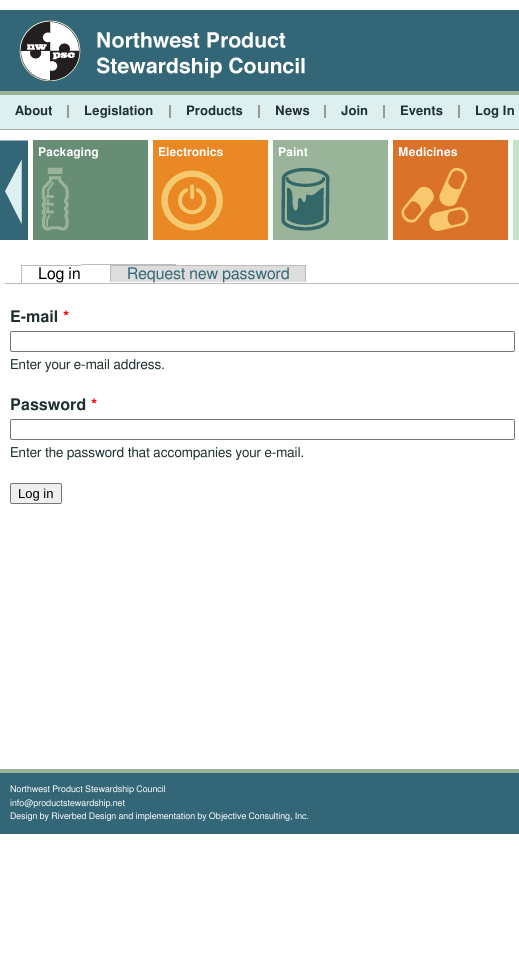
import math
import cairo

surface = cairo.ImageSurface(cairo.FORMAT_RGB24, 519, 954)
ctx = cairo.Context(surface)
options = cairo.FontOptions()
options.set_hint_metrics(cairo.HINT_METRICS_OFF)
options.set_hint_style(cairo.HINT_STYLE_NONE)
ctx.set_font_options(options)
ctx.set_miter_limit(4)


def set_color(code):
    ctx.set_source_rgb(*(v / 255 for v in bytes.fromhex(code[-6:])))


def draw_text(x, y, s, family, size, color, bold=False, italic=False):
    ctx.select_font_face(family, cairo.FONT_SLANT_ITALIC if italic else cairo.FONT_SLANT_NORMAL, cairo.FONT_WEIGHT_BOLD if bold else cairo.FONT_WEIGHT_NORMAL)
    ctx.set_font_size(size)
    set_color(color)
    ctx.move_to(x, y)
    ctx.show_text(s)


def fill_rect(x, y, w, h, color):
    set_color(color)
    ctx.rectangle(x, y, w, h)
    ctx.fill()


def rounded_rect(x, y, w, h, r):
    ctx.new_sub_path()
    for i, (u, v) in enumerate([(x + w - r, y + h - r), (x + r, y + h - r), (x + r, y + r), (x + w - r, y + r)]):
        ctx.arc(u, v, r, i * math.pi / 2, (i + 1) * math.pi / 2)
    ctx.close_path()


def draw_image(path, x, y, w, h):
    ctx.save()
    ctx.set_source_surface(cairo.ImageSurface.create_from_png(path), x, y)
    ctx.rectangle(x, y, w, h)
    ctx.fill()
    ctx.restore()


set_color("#ffffff")
ctx.paint()
fill_rect(0, 10, 519, 81, "#336677")
fill_rect(0, 91, 519, 4, "#99b399")
draw_image("assets/img1.png", 19, 20, 286, 61)
fill_rect(0, 95, 519, 34, "#deefef")
fill_rect(0, 129, 519, 1, "#99b399")
fill_rect(67, 105, 2, 13, "#999999")
draw_text(15, 115, "About", "FreeSans SemiBold", 13, "#1e3030")
fill_rect(169, 105, 2, 13, "#999999")
draw_text(84, 115, "Legislation", "FreeSans SemiBold", 13, "#1e3030")
fill_rect(258, 105, 2, 13, "#999999")
draw_text(186, 115, "Products", "FreeSans SemiBold", 13, "#1e3030")
fill_rect(324, 105, 2, 13, "#999999")
draw_text(275, 115, "News", "FreeSans SemiBold", 13, "#1e3030")
fill_rect(383, 105, 2, 13, "#999999")
draw_text(341, 115, "Join", "FreeSans SemiBold", 13, "#1e3030")
fill_rect(458, 105, 2, 13, "#999999")
draw_text(400, 115, "Events", "FreeSans SemiBold", 13, "#1e3030")
draw_text(475, 115, "Log In", "FreeSans SemiBold", 13, "#1e3030")
draw_image("assets/img2.png", 0, 140, 28, 100)
draw_image("assets/img3.png", 33, 140, 115, 100)
draw_text(38, 156, "Packaging", "FreeSans SemiBold", 12, "#ffffff")
draw_image("assets/img4.png", 153, 140, 115, 100)
draw_text(158, 156, "Electronics", "FreeSans SemiBold", 12, "#ffffff")
draw_image("assets/img5.png", 273, 140, 115, 100)
draw_text(278, 156, "Paint", "FreeSans SemiBold", 12, "#ffffff")
draw_image("assets/img6.png", 393, 140, 115, 100)
draw_text(398, 156, "Medicines", "FreeSans SemiBold", 12, "#ffffff")
fill_rect(513, 140, 6, 100, "#c5e3c7")
fill_rect(5, 283, 514, 1, "#bbbbbb")
draw_text(38, 279, "Log in", "FreeSans", 16, "#000000")
fill_rect(21, 265, 60, 1, "#bbbbbb")
fill_rect(21, 265, 1, 18, "#bbbbbb")
fill_rect(81, 264, 95, 1, "#bbbbbb")
fill_rect(175, 264, 1, 3, "#bbbbbb")
fill_rect(111, 266, 194, 16, "#dddddd")
draw_text(127, 279, "Request new password", "FreeSans", 16, "#346677")
fill_rect(110, 265, 196, 1, "#bbbbbb")
fill_rect(305, 265, 1, 17, "#bbbbbb")
fill_rect(110, 265, 1, 17, "#bbbbbb")
draw_text(10, 322, "E-mail", "FreeSans SemiBold", 16, "#1e3030")
draw_text(63, 322, "*", "FreeSans SemiBold", 16, "#ff0000")
rounded_rect(10.5, 331.5, 504, 20, 1.5)
set_color("#767676")
ctx.set_line_width(1)
ctx.stroke()
draw_text(10, 369, "Enter your e-mail address.", "FreeSans", 13.6, "#1e3030")
draw_text(10, 410, "Password", "FreeSans SemiBold", 16, "#1e3030")
draw_text(91, 410, "*", "FreeSans SemiBold", 16, "#ff0000")
rounded_rect(10.5, 419.5, 504, 20, 1.5)
set_color("#767676")
ctx.stroke()
draw_text(10, 457, "Enter the password that accompanies your e-mail.", "FreeSans", 13.6, "#1e3030")
set_color("#efefef")
rounded_rect(10.5, 483.5, 51, 20, 1.5)
ctx.fill_preserve()
set_color("#767676")
ctx.stroke()
draw_text(18, 498, "Log in", "Liberation Sans", 13, "#000000")
fill_rect(0, 773, 519, 61, "#336677")
fill_rect(0, 769, 519, 4, "#99b399")
draw_text(10, 792, "Northwest Product Stewardship Council", "FreeSans", 9, "#ffffff")
draw_text(10, 806, "info@productstewardship.net", "FreeSans", 9, "#ffffff")
draw_text(10, 819, "Design by Riverbed Design and implementation by Objective Consulting, Inc.", "FreeSans", 9, "#ffffff")
surface.write_to_png("output.png")
